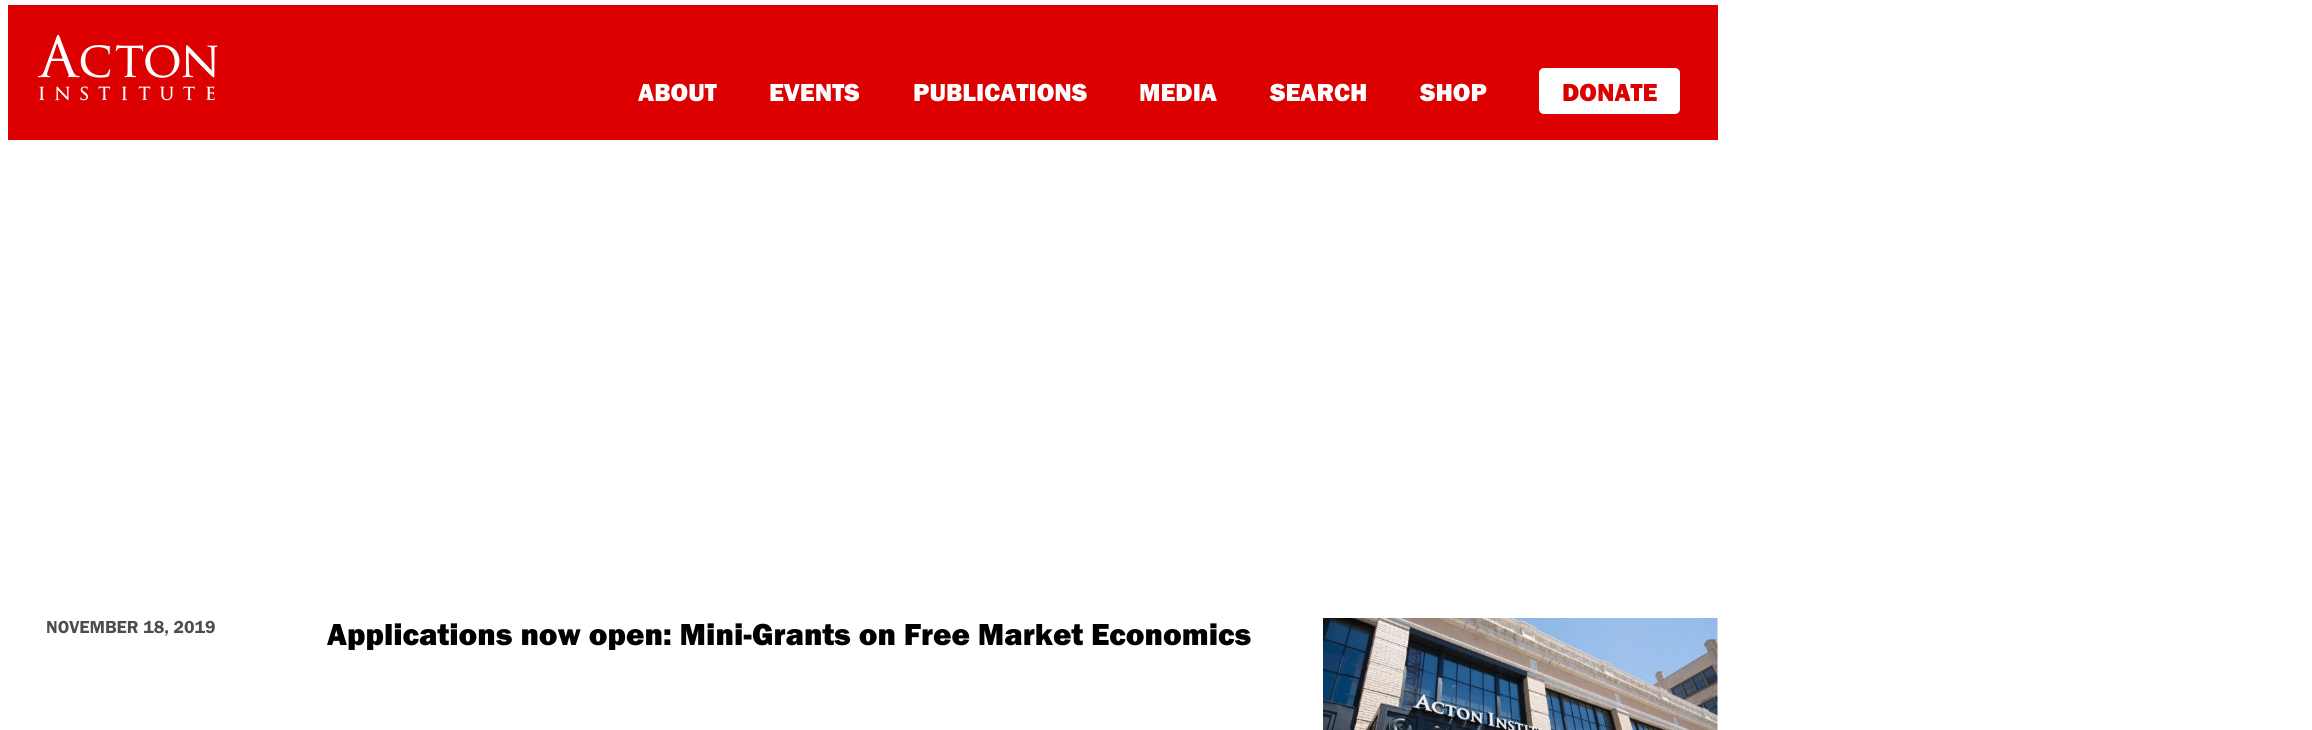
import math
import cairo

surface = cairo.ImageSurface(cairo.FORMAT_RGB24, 2312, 730)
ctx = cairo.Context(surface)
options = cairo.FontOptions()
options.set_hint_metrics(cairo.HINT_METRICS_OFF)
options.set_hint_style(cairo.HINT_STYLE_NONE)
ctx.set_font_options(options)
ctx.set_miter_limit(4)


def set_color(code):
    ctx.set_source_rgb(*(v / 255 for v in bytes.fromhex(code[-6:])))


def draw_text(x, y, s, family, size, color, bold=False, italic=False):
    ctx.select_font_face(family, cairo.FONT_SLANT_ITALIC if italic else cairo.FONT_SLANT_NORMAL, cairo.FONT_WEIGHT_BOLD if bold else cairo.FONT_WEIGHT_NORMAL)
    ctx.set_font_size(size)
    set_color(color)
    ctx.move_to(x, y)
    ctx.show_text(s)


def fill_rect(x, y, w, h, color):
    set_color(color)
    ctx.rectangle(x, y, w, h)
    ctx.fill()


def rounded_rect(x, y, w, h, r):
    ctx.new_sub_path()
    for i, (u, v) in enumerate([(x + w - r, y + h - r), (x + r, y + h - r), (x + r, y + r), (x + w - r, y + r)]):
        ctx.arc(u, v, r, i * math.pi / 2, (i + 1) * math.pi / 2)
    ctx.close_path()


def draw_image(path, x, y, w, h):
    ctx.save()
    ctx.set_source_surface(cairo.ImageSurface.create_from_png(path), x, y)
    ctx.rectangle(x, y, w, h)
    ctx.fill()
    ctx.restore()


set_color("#ffffff")
ctx.paint()
fill_rect(8, 5, 1710, 135, "#dd0000")
draw_image("assets/img1.png", 38, 35, 180, 66)
draw_text(638, 101, "ABOUT", "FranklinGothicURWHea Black", 25.5, "#ffffff")
draw_text(769, 101, "EVENTS", "FranklinGothicURWHea Black", 25.5, "#ffffff")
draw_text(913, 101, "PUBLICATIONS", "FranklinGothicURWHea Black", 25.5, "#ffffff")
draw_text(1139, 101, "MEDIA", "FranklinGothicURWHea Black", 25.5, "#ffffff")
draw_text(1270, 101, "SEARCH", "FranklinGothicURWHea Black", 25.5, "#ffffff")
draw_text(1420, 101, "SHOP", "FranklinGothicURWHea Black", 25.5, "#ffffff")
rounded_rect(1539, 68, 141, 46, 5)
ctx.fill()
draw_text(1562, 101, "DONATE", "FranklinGothicURWHea Black", 25.5, "#dd0000")
draw_text(46, 633, "NOVEMBER 18, 2019", "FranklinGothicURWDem", 18, "#4d4d4d")
draw_text(327, 645, "Applications now open: Mini-Grants on Free Market Economics", "FranklinGothicURWHea Black", 31.5, "#000000")
draw_image("assets/img2.png", 1323, 618, 395, 112)
surface.write_to_png("output.png")
